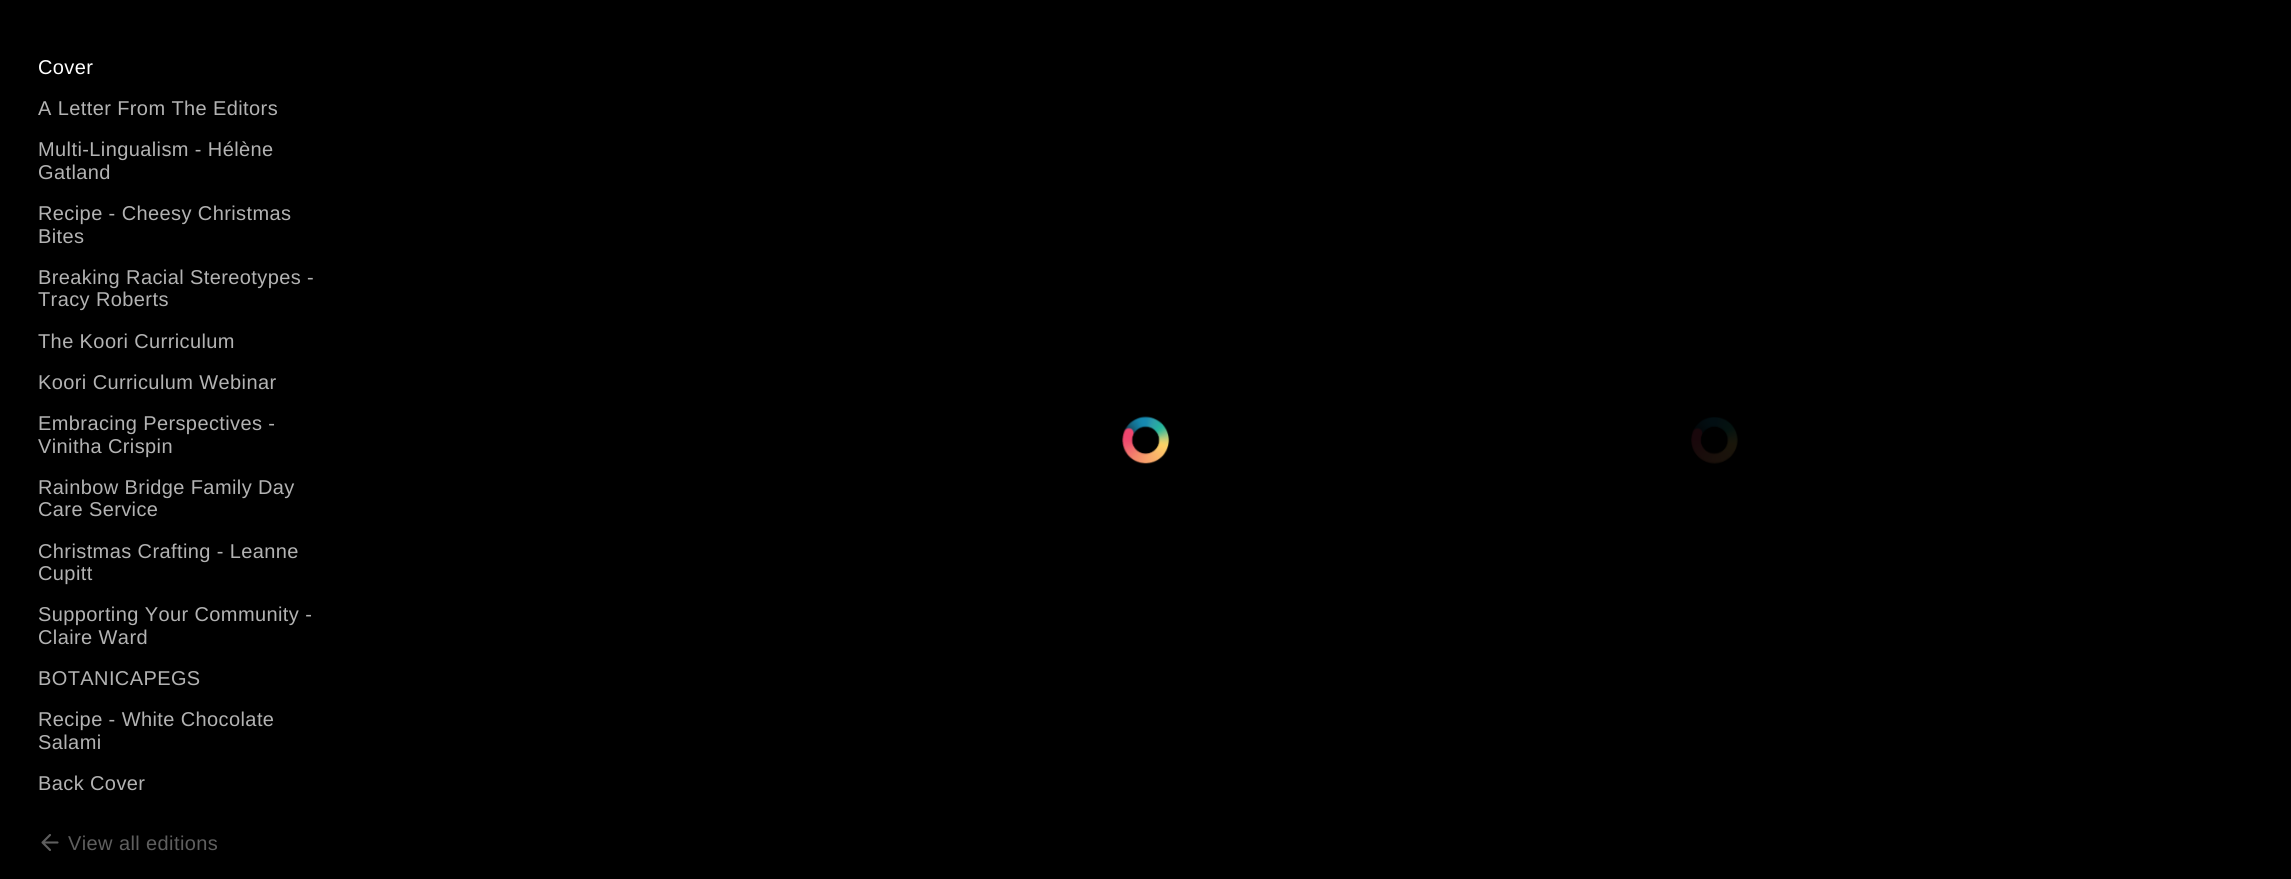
import math
import cairo

surface = cairo.ImageSurface(cairo.FORMAT_RGB24, 2291, 879)
ctx = cairo.Context(surface)
options = cairo.FontOptions()
options.set_hint_metrics(cairo.HINT_METRICS_OFF)
options.set_hint_style(cairo.HINT_STYLE_NONE)
ctx.set_font_options(options)
ctx.set_miter_limit(4)


def set_color(code):
    ctx.set_source_rgb(*(v / 255 for v in bytes.fromhex(code[-6:])))


def draw_spaced(x, y, s, letter, word):
    ctx.move_to(x, y)
    for ch in s:
        ctx.show_text(ch)
        ctx.rel_move_to(letter + word * (ch == ' '), 0)


def draw_image(path, x, y, w, h):
    ctx.save()
    ctx.set_source_surface(cairo.ImageSurface.create_from_png(path), x, y)
    ctx.rectangle(x, y, w, h)
    ctx.fill()
    ctx.restore()


set_color("#000000")
ctx.paint()
ctx.select_font_face("Liberation Sans")
ctx.set_font_size(20)
set_color("#ffffff")
draw_spaced(38, 74, "Cover", 0.4, 0)
set_color("#b3b3b3")
draw_spaced(38, 115, "A Letter From The Editors", 0.4, 0)
draw_spaced(38, 156, "Multi-Lingualism - Hélène", 0.4, 0)
draw_spaced(38, 179, "Gatland", 0.4, 0)
draw_spaced(38, 220, "Recipe - Cheesy Christmas", 0.4, 0)
draw_spaced(38, 243, "Bites", 0.4, 0)
draw_spaced(38, 284, "Breaking Racial Stereotypes -", 0.4, 0)
draw_spaced(38, 306, "Tracy Roberts", 0.4, 0)
draw_spaced(38, 348, "The Koori Curriculum", 0.4, 0)
draw_spaced(38, 389, "Koori Curriculum Webinar", 0.4, 0)
draw_spaced(38, 430, "Embracing Perspectives -", 0.4, 0)
draw_spaced(38, 453, "Vinitha Crispin", 0.4, 0)
draw_spaced(38, 494, "Rainbow Bridge Family Day", 0.4, 0)
draw_spaced(38, 516, "Care Service", 0.4, 0)
draw_spaced(38, 558, "Christmas Crafting - Leanne", 0.4, 0)
draw_spaced(38, 580, "Cupitt", 0.4, 0)
draw_spaced(38, 621, "Supporting Your Community -", 0.4, 0)
draw_spaced(38, 644, "Claire Ward", 0.4, 0)
draw_spaced(38, 685, "BOTANICAPEGS", 0.4, 0)
draw_spaced(38, 726, "Recipe - White Chocolate", 0.4, 0)
draw_spaced(38, 749, "Salami", 0.4, 0)
draw_spaced(38, 790, "Back Cover", 0.4, 0)
set_color("#5f5f5f")
draw_spaced(68, 850, "View all editions", 0.4, 0)
ctx.new_path()
ctx.move_to(57.5, 842.5)
ctx.line_to(42.5, 842.5)
ctx.move_to(50, 850)
ctx.line_to(42.5, 842.5)
ctx.line_to(50, 835)
ctx.set_line_width(2.1)
ctx.set_line_cap(cairo.LINE_CAP_ROUND)
ctx.set_line_join(cairo.LINE_JOIN_ROUND)
ctx.stroke()
draw_image("assets/img1.png", 1122, 416, 48, 48)
draw_image("assets/img2.png", 1691, 417, 47, 47)
surface.write_to_png("output.png")
